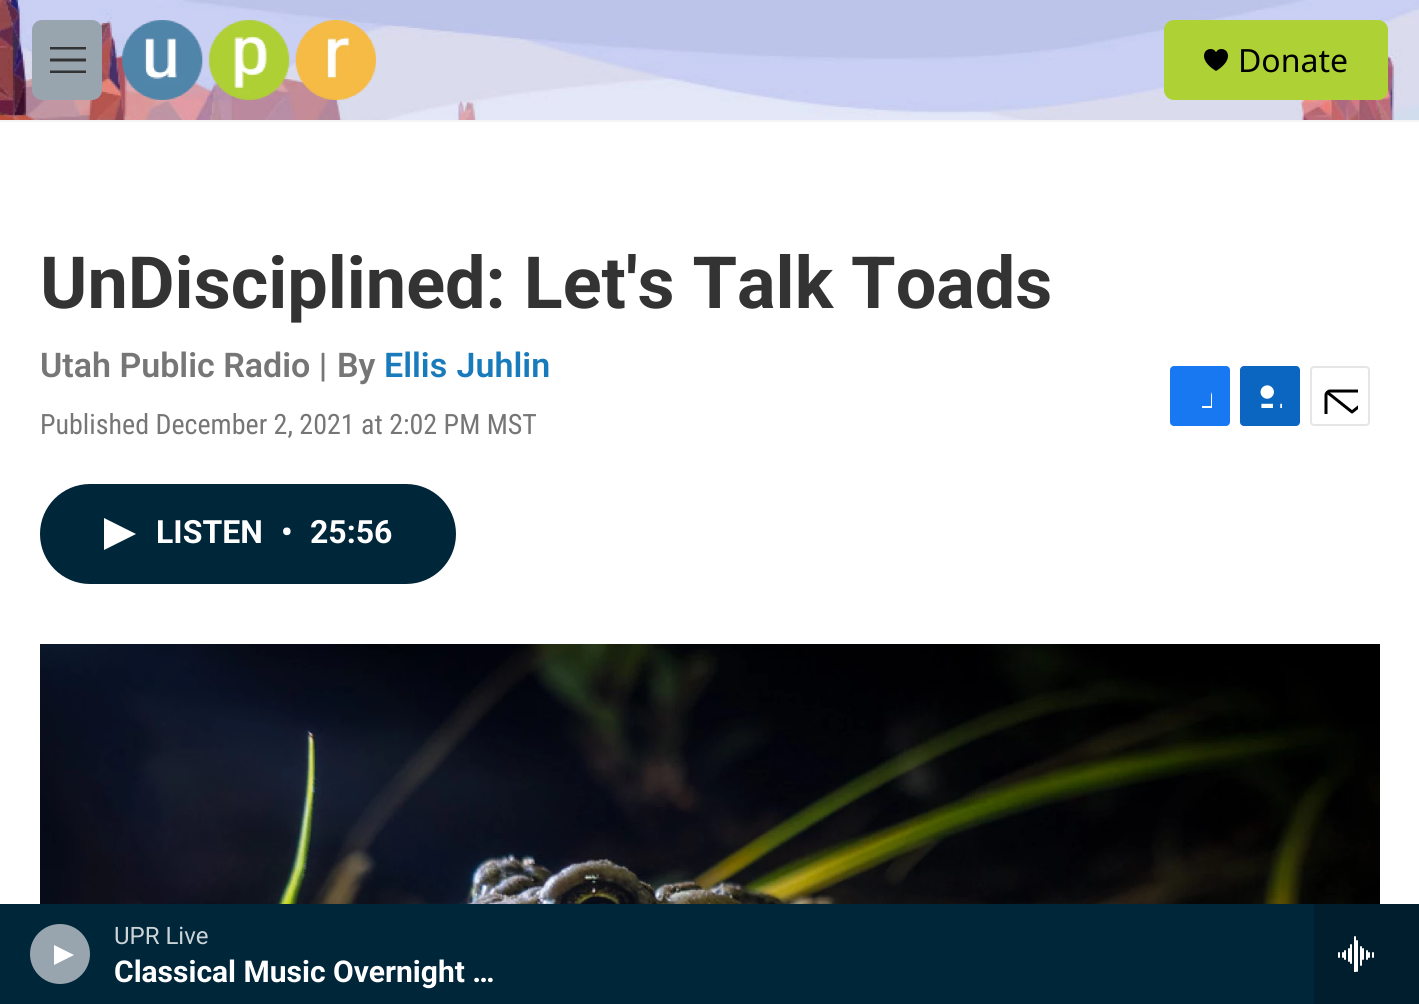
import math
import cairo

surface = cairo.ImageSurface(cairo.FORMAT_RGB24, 1419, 1004)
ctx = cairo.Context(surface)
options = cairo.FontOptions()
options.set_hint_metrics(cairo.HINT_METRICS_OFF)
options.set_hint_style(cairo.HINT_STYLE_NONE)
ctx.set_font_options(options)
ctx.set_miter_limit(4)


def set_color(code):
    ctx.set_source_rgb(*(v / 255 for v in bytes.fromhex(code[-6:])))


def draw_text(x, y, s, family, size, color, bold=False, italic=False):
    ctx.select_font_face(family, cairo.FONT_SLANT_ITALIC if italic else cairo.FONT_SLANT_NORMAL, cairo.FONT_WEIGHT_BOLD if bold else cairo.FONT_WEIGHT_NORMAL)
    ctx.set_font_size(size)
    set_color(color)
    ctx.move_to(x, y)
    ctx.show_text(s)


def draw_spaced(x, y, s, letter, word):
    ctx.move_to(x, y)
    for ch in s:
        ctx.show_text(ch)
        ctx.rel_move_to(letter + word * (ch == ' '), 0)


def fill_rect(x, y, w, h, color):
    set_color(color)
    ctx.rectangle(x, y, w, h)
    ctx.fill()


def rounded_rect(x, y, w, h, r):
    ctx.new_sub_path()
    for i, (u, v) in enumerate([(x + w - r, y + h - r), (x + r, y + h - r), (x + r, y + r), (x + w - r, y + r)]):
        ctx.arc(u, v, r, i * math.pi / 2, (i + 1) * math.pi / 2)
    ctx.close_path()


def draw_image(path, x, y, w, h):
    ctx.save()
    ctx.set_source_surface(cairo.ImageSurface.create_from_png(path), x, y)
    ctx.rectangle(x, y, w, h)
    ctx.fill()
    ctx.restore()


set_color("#ffffff")
ctx.paint()
fill_rect(0, 120, 1419, 2, "#f5f5f5")
draw_image("assets/img1.png", 0, 0, 1419, 120)
set_color("#98a4ae")
rounded_rect(32, 20, 70, 80, 10)
ctx.fill()
set_color("#333333")
ctx.set_fill_rule(cairo.FILL_RULE_EVEN_ODD)
ctx.new_path()
ctx.move_to(50, 61.5)
ctx.line_to(50, 58.5)
ctx.line_to(86, 58.5)
ctx.line_to(86, 61.5)
ctx.close_path()
ctx.move_to(50, 49.5)
ctx.line_to(50, 47)
ctx.line_to(86, 47)
ctx.line_to(86, 49.5)
ctx.close_path()
ctx.move_to(50, 73)
ctx.line_to(50, 70.5)
ctx.line_to(86, 70.5)
ctx.line_to(86, 73)
ctx.close_path()
ctx.fill()
draw_image("assets/img2.png", 122, 20, 254, 80)
set_color("#aed136")
rounded_rect(1164, 20, 224, 80, 10)
ctx.fill()
draw_image("assets/img3.png", 1204, 49, 24, 22)
draw_text(1238, 72, "Donate", "Noto Sans", 32, "#000000")
fill_rect(0, 904, 1314, 100, "#00263a")
set_color("#98a4ae")
ctx.new_path()
ctx.arc(60, 954, 30, 0, 2 * math.pi)
ctx.fill()
set_color("#ffffff")
ctx.set_fill_rule(cairo.FILL_RULE_WINDING)
ctx.new_path()
ctx.move_to(54, 945)
ctx.line_to(74, 955)
ctx.line_to(54, 965)
ctx.close_path()
ctx.fill()
draw_text(114, 944, "UPR Live", "Roboto", 24, "#ccd4d8")
draw_text(114, 982, "Classical Music Overnight …", "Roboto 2", 30, "#ffffff", bold=True)
fill_rect(1314, 904, 105, 100, "#001e2e")
draw_image("assets/img4.png", 1338, 936, 36, 36)
draw_text(40, 308, "UnDisciplined: Let's Talk Toads", "Roboto", 72, "#333333", bold=True)
draw_text(40, 377, "Utah Public Radio |", "Roboto SemiBold", 34, "#767676")
draw_text(337, 377, "By", "Roboto SemiBold", 34, "#767676")
set_color("#1a7bbc")
draw_spaced(384, 377, "Ellis Juhlin", 0, 1)
draw_text(40, 434, "Published December 2, 2021 at 2:02 PM MST", "Roboto Condensed", 28, "#767676")
set_color("#1778f2")
rounded_rect(1170, 366, 60, 60, 4)
ctx.fill()
ctx.save()
ctx.rectangle(1188, 384, 24, 24)
ctx.clip()
set_color("#ffffff")
ctx.new_path()
ctx.move_to(1221, 426)
ctx.line_to(1211, 426)
ctx.line_to(1211, 416)
ctx.line_to(1202, 416)
ctx.line_to(1202, 406)
ctx.line_to(1211, 406)
ctx.line_to(1211, 395)
ctx.curve_to(1213, 386, 1222, 384, 1230, 385)
ctx.line_to(1230, 394)
ctx.curve_to(1219, 394, 1221, 397, 1221, 406)
ctx.line_to(1230, 406)
ctx.line_to(1230, 411)
ctx.line_to(1229, 416)
ctx.line_to(1221, 416)
ctx.close_path()
ctx.fill()
ctx.restore()
set_color("#0a66c1")
rounded_rect(1240, 366, 60, 60, 4)
ctx.fill()
draw_image("assets/img5.png", 1260, 385, 22, 23)
rounded_rect(1311, 367, 58, 58, 3)
set_color("#e6e6e6")
ctx.stroke()
ctx.save()
ctx.rectangle(1322, 378, 36, 36)
ctx.clip()
ctx.new_path()
ctx.move_to(1378, 422)
ctx.curve_to(1378, 424, 1376, 425.5, 1374, 425.5)
ctx.line_to(1330, 425.5)
ctx.curve_to(1328, 425.5, 1326, 424, 1326, 422)
ctx.line_to(1326, 395)
ctx.curve_to(1326, 393, 1328, 391, 1330, 391)
ctx.line_to(1374, 391)
ctx.curve_to(1376, 391, 1378, 393, 1378, 395)
ctx.close_path()
ctx.move_to(1376.5, 392.5)
ctx.line_to(1352, 412)
ctx.line_to(1327.5, 392.5)
set_color("#000000")
ctx.set_line_width(3)
ctx.set_line_cap(cairo.LINE_CAP_ROUND)
ctx.set_line_join(cairo.LINE_JOIN_ROUND)
ctx.stroke()
ctx.restore()
set_color("#00263a")
rounded_rect(40, 484, 416, 100, 50)
ctx.fill()
set_color("#ffffff")
ctx.new_path()
ctx.move_to(104, 518)
ctx.line_to(136, 534)
ctx.line_to(104, 550)
ctx.close_path()
ctx.fill()
draw_text(156, 543, "LISTEN", "Roboto 2", 32, "#ffffff", bold=True)
draw_text(281, 543, "•", "Roboto 2", 32, "#ffffff", bold=True)
draw_text(310, 543, "25:56", "Roboto 2", 32, "#ffffff", bold=True)
draw_image("assets/img6.png", 40, 644, 1340, 260)
surface.write_to_png("output.png")
